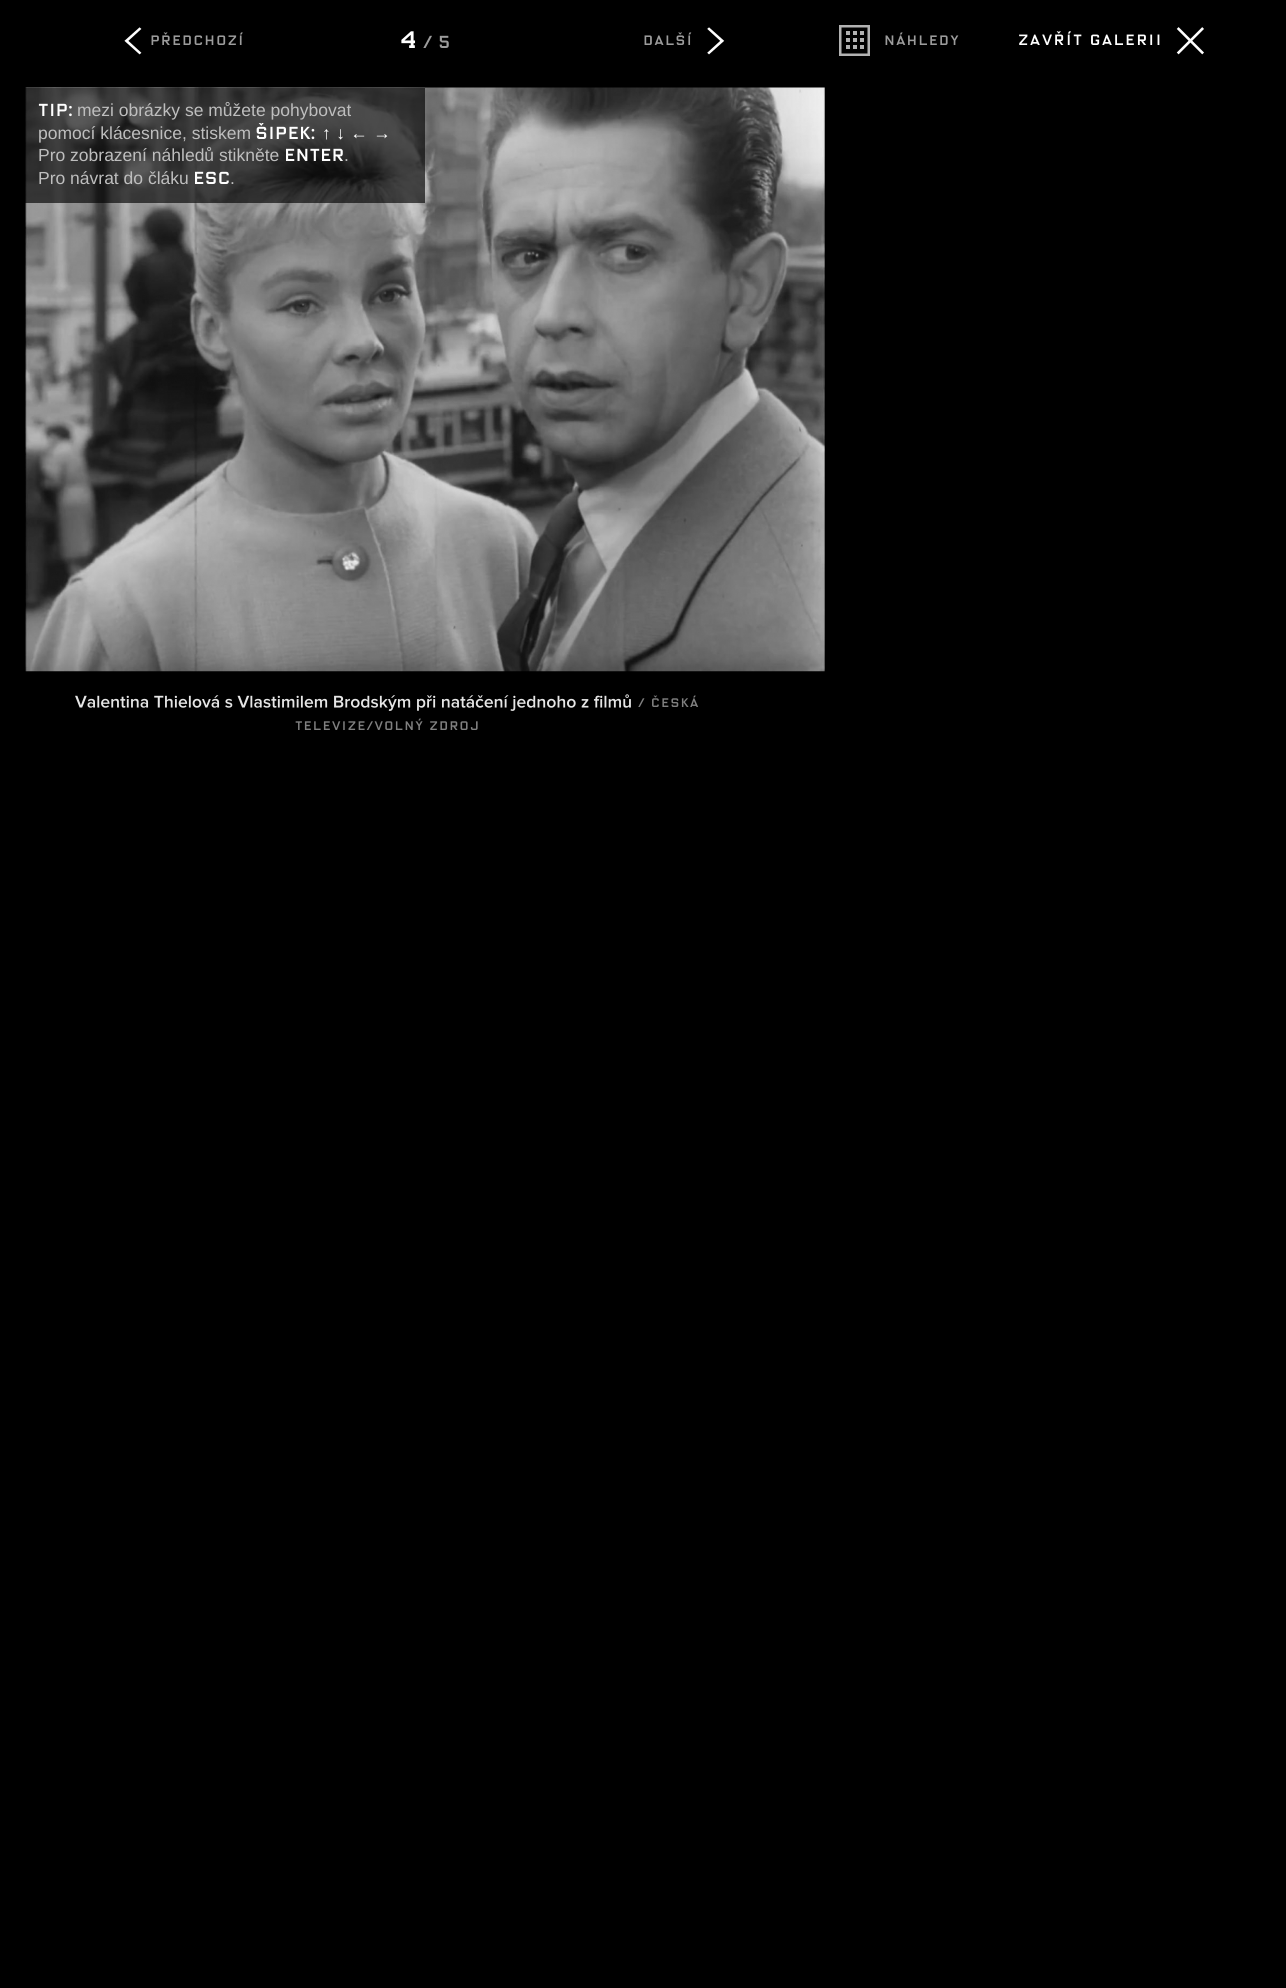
import math
import cairo

surface = cairo.ImageSurface(cairo.FORMAT_RGB24, 1286, 1988)
ctx = cairo.Context(surface)
options = cairo.FontOptions()
options.set_hint_metrics(cairo.HINT_METRICS_OFF)
options.set_hint_style(cairo.HINT_STYLE_NONE)
ctx.set_font_options(options)
ctx.set_miter_limit(4)


def set_color(code):
    ctx.set_source_rgb(*(v / 255 for v in bytes.fromhex(code[-6:])))


def draw_text(x, y, s, family, size, color, bold=False, italic=False):
    ctx.select_font_face(family, cairo.FONT_SLANT_ITALIC if italic else cairo.FONT_SLANT_NORMAL, cairo.FONT_WEIGHT_BOLD if bold else cairo.FONT_WEIGHT_NORMAL)
    ctx.set_font_size(size)
    set_color(color)
    ctx.move_to(x, y)
    ctx.show_text(s)


def draw_spaced(x, y, s, letter, word):
    ctx.move_to(x, y)
    for ch in s:
        ctx.show_text(ch)
        ctx.rel_move_to(letter + word * (ch == ' '), 0)


def draw_image(path, x, y, w, h):
    ctx.save()
    ctx.set_source_surface(cairo.ImageSurface.create_from_png(path), x, y)
    ctx.rectangle(x, y, w, h)
    ctx.fill()
    ctx.restore()


set_color("#000000")
ctx.paint()
draw_image("assets/img1.png", 124, 27, 18, 28)
ctx.select_font_face("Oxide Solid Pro")
ctx.set_font_size(13.75)
set_color("#9c9c9c")
draw_spaced(150, 45, "Předchozí", 1, 0)
draw_text(400, 48, "4", "Oxide Solid Pro", 24, "#ffffff")
draw_text(423, 48, "/ 5", "Oxide Solid Pro", 17.5, "#9c9c9c")
ctx.set_font_size(13.75)
draw_spaced(643, 45, "Další", 1, 0)
draw_image("assets/img2.png", 707, 27, 18, 28)
draw_image("assets/img3.png", 25, 87, 800, 585)
ctx.set_source_rgba(0, 0, 0, 0.65)
ctx.rectangle(25, 88, 400, 115)
ctx.fill()
draw_text(38, 116, "TIP:", "Oxide Solid Pro", 17.5, "#ffffff")
draw_text(77, 116, "mezi obrázky se můžete pohybovat", "Liberation Sans", 17.5, "#bebebe")
draw_text(38, 139, "pomocí klácesnice, stiskem", "Liberation Sans", 17.5, "#bebebe")
draw_text(255, 139, "šipek:", "Oxide Solid Pro", 17.5, "#ffffff")
ctx.select_font_face("Liberation Serif")
draw_spaced(322, 139, "↑ ↓ ← →", 0, 1)
draw_text(38, 161, "Pro zobrazení náhledů stikněte", "Liberation Sans", 17.5, "#bebebe")
draw_text(284, 161, "Enter", "Oxide Solid Pro", 17.5, "#ffffff")
draw_text(344, 161, ".", "Liberation Sans", 17.5, "#bebebe")
draw_text(38, 184, "Pro návrat do čláku", "Liberation Sans", 17.5, "#bebebe")
draw_text(193, 184, "Esc", "Oxide Solid Pro", 17.5, "#ffffff")
draw_text(230, 184, ".", "Liberation Sans", 17.5, "#bebebe")
draw_image("assets/img4.png", 75, 694, 556, 17)
ctx.select_font_face("Oxide Solid Pro")
ctx.set_font_size(12.5)
set_color("#808080")
draw_spaced(638, 707, "/ Česká", 1, 0)
draw_spaced(295, 730, "televize/volný zdroj", 1, 0)
draw_image("assets/img5.png", 839, 25, 31, 31)
ctx.set_font_size(13.75)
set_color("#9c9c9c")
draw_spaced(884, 45, "Náhledy", 1, 0)
ctx.set_font_size(15)
set_color("#ffffff")
draw_spaced(1018, 45, "Zavřít galerii", 1.25, 0)
draw_image("assets/img6.png", 1176, 27, 28, 28)
surface.write_to_png("output.png")
